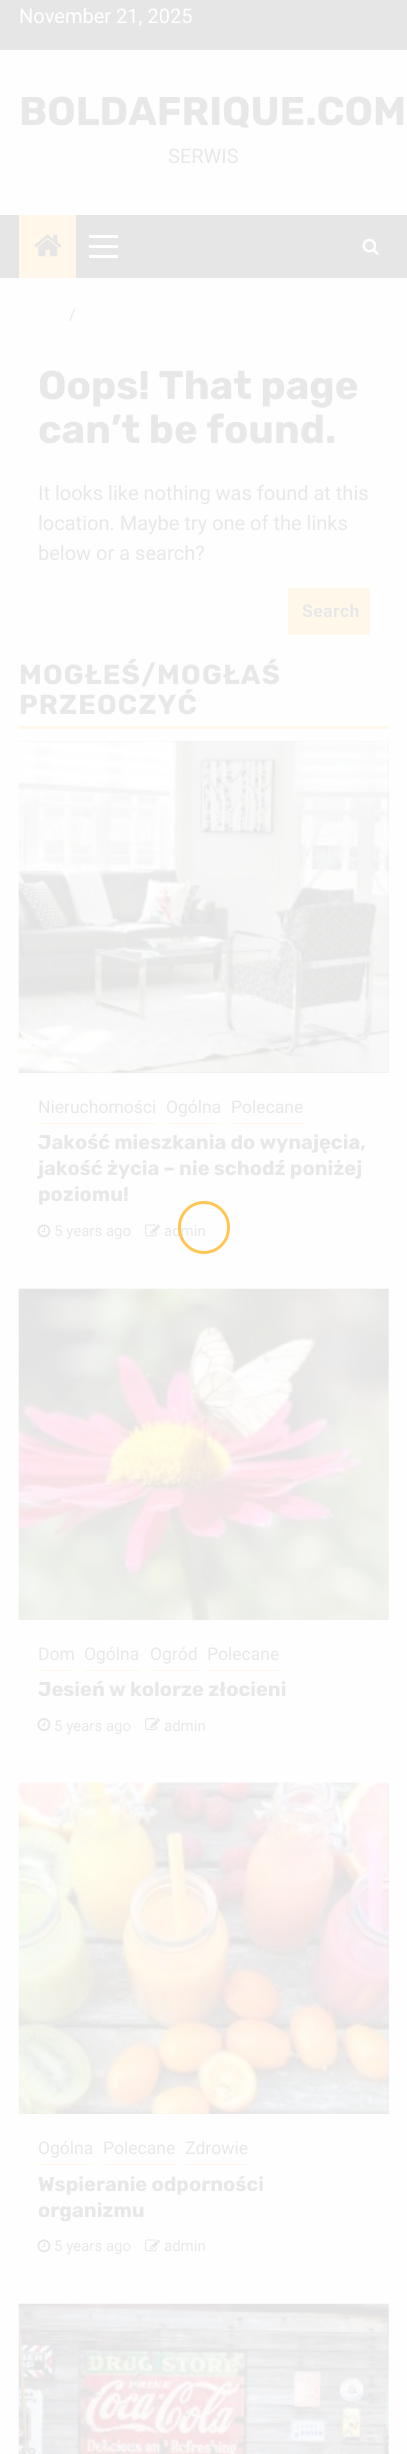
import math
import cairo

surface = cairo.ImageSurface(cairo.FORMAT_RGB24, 407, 2454)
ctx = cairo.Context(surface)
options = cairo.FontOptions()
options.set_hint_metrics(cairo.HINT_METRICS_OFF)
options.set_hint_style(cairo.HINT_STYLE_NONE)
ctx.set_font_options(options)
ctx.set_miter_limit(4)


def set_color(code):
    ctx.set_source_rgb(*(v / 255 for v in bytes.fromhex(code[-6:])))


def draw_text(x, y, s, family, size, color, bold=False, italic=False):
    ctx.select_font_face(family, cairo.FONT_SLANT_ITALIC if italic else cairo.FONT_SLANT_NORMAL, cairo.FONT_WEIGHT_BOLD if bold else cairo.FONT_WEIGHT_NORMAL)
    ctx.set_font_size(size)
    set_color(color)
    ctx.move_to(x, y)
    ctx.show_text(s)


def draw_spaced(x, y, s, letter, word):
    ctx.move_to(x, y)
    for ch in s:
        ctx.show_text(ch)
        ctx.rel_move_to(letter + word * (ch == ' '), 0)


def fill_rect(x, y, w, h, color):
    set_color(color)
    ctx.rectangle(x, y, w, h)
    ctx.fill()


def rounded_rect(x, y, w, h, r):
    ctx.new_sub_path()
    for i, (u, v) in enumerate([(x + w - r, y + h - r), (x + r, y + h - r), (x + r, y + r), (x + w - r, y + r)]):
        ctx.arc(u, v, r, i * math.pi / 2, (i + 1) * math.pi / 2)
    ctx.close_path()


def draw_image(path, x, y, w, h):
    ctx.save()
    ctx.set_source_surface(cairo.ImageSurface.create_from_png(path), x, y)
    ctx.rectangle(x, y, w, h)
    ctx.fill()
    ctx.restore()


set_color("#fefefe")
ctx.paint()
fill_rect(0, 0, 407, 50, "#e6e6e6")
draw_text(19, 23, "November 21, 2025", "Roboto", 20, "#ffffff")
draw_text(19, 125, "BOLDAFRIQUE.COM", "Rubik", 40, "#e8e8e8", bold=True)
draw_text(168, 163, "SERWIS", "Roboto", 20, "#e8e8e8")
fill_rect(0, 215, 407, 63, "#e6e6e6")
fill_rect(19, 215, 57, 63, "#fff8ea")
draw_image("assets/img1.png", 34, 234, 28, 23)
fill_rect(89, 245, 29, 3, "#ffffff")
fill_rect(89, 235, 29, 3, "#ffffff")
fill_rect(89, 255, 29, 3, "#ffffff")
draw_image("assets/img2.png", 362, 238, 17, 17)
draw_text(69, 320, "/", "Roboto", 16, "#e8e8e8")
draw_text(38, 399, "Oops! That page", "Rubik", 40, "#e8e8e8", bold=True)
draw_text(38, 443, "can’t be found.", "Rubik", 40, "#e8e8e8", bold=True)
draw_text(38, 500, "It looks like nothing was found at this", "Roboto", 20, "#e8e8e8")
draw_text(38, 530, "location. Maybe try one of the links", "Roboto", 20, "#e8e8e8")
draw_text(38, 560, "below or a search?", "Roboto", 20, "#e8e8e8")
fill_rect(288, 588, 82, 47, "#fff8ea")
ctx.select_font_face("Roboto", cairo.FONT_SLANT_NORMAL, cairo.FONT_WEIGHT_BOLD)
ctx.set_font_size(17.5)
set_color("#e8e8e8")
draw_spaced(302, 617, "Search", 0.5, 0)
fill_rect(19, 726, 370, 3, "#fff8ea")
ctx.select_font_face("Rubik", cairo.FONT_SLANT_NORMAL, cairo.FONT_WEIGHT_BOLD)
ctx.set_font_size(27.5)
set_color("#e8e8e8")
draw_spaced(19, 684, "MOGŁEŚ/MOGŁAŚ", 1.25, 0)
draw_spaced(19, 714, "PRZEOCZYĆ", 1.25, 0)
fill_rect(19, 741, 370, 332, "#eaeaea")
draw_image("assets/img3.png", 18, 741, 371, 332)
fill_rect(38, 1123, 118, 1, "#fff8ea")
draw_text(38, 1113, "Nieruchomości", "Roboto", 17.5, "#e8e8e8")
fill_rect(166, 1123, 55, 1, "#fff8ea")
draw_text(166, 1113, "Ogólna", "Roboto", 17.5, "#e8e8e8")
fill_rect(231, 1123, 73, 1, "#fff8ea")
draw_text(231, 1113, "Polecane", "Roboto", 17.5, "#e8e8e8")
draw_text(38, 1149, "Jakość mieszkania do wynajęcia,", "Rubik", 20, "#e8e8e8", bold=True)
draw_text(38, 1175, "jakość życia – nie schodź poniżej", "Rubik", 20, "#e8e8e8", bold=True)
draw_text(38, 1201, "poziomu!", "Rubik", 20, "#e8e8e8", bold=True)
draw_image("assets/img4.png", 37, 1224, 14, 14)
draw_text(54, 1236, "5 years ago", "Roboto", 15, "#e8e8e8")
draw_image("assets/img5.png", 145, 1224, 15, 13)
draw_text(164, 1236, "admin", "Roboto", 15, "#e8e8e8")
draw_image("assets/img6.png", 18, 1288, 371, 332)
fill_rect(38, 1670, 36, 1, "#fff8ea")
draw_text(38, 1660, "Dom", "Roboto", 17.5, "#e8e8e8")
fill_rect(84, 1670, 56, 1, "#fff8ea")
draw_text(84, 1660, "Ogólna", "Roboto", 17.5, "#e8e8e8")
fill_rect(150, 1670, 48, 1, "#fff8ea")
draw_text(150, 1660, "Ogród", "Roboto", 17.5, "#e8e8e8")
fill_rect(208, 1670, 72, 1, "#fff8ea")
draw_text(207, 1660, "Polecane", "Roboto", 17.5, "#e8e8e8")
draw_text(38, 1696, "Jesień w kolorze złocieni", "Rubik", 20, "#e8e8e8", bold=True)
draw_image("assets/img7.png", 37, 1718, 14, 14)
draw_text(54, 1731, "5 years ago", "Roboto", 15, "#e8e8e8")
draw_image("assets/img8.png", 145, 1718, 15, 12)
draw_text(164, 1731, "admin", "Roboto", 15, "#e8e8e8")
fill_rect(19, 1783, 370, 331, "#eaeaea")
draw_image("assets/img9.png", 18, 1782, 371, 332)
fill_rect(38, 2164, 55, 1, "#fff8ea")
draw_text(38, 2154, "Ogólna", "Roboto", 17.5, "#e8e8e8")
fill_rect(103, 2164, 72, 1, "#fff8ea")
draw_text(103, 2154, "Polecane", "Roboto", 17.5, "#e8e8e8")
fill_rect(185, 2164, 63, 1, "#fff8ea")
draw_text(185, 2154, "Zdrowie", "Roboto", 17.5, "#e8e8e8")
draw_text(38, 2191, "Wspieranie odporności", "Rubik", 20, "#e8e8e8", bold=True)
draw_text(38, 2217, "organizmu", "Rubik", 20, "#e8e8e8", bold=True)
draw_image("assets/img4.png", 37, 2239, 14, 14)
draw_text(54, 2251, "5 years ago", "Roboto", 15, "#e8e8e8")
draw_image("assets/img5.png", 145, 2239, 15, 13)
draw_text(164, 2251, "admin", "Roboto", 15, "#e8e8e8")
draw_image("assets/img10.png", 18, 2303, 371, 151)
rounded_rect(179.5, 1202.5, 49, 50, 24.5)
ctx.set_source_rgba(1, 0.749, 0.247, 0.89)
ctx.set_line_width(3)
ctx.stroke()
surface.write_to_png("output.png")
